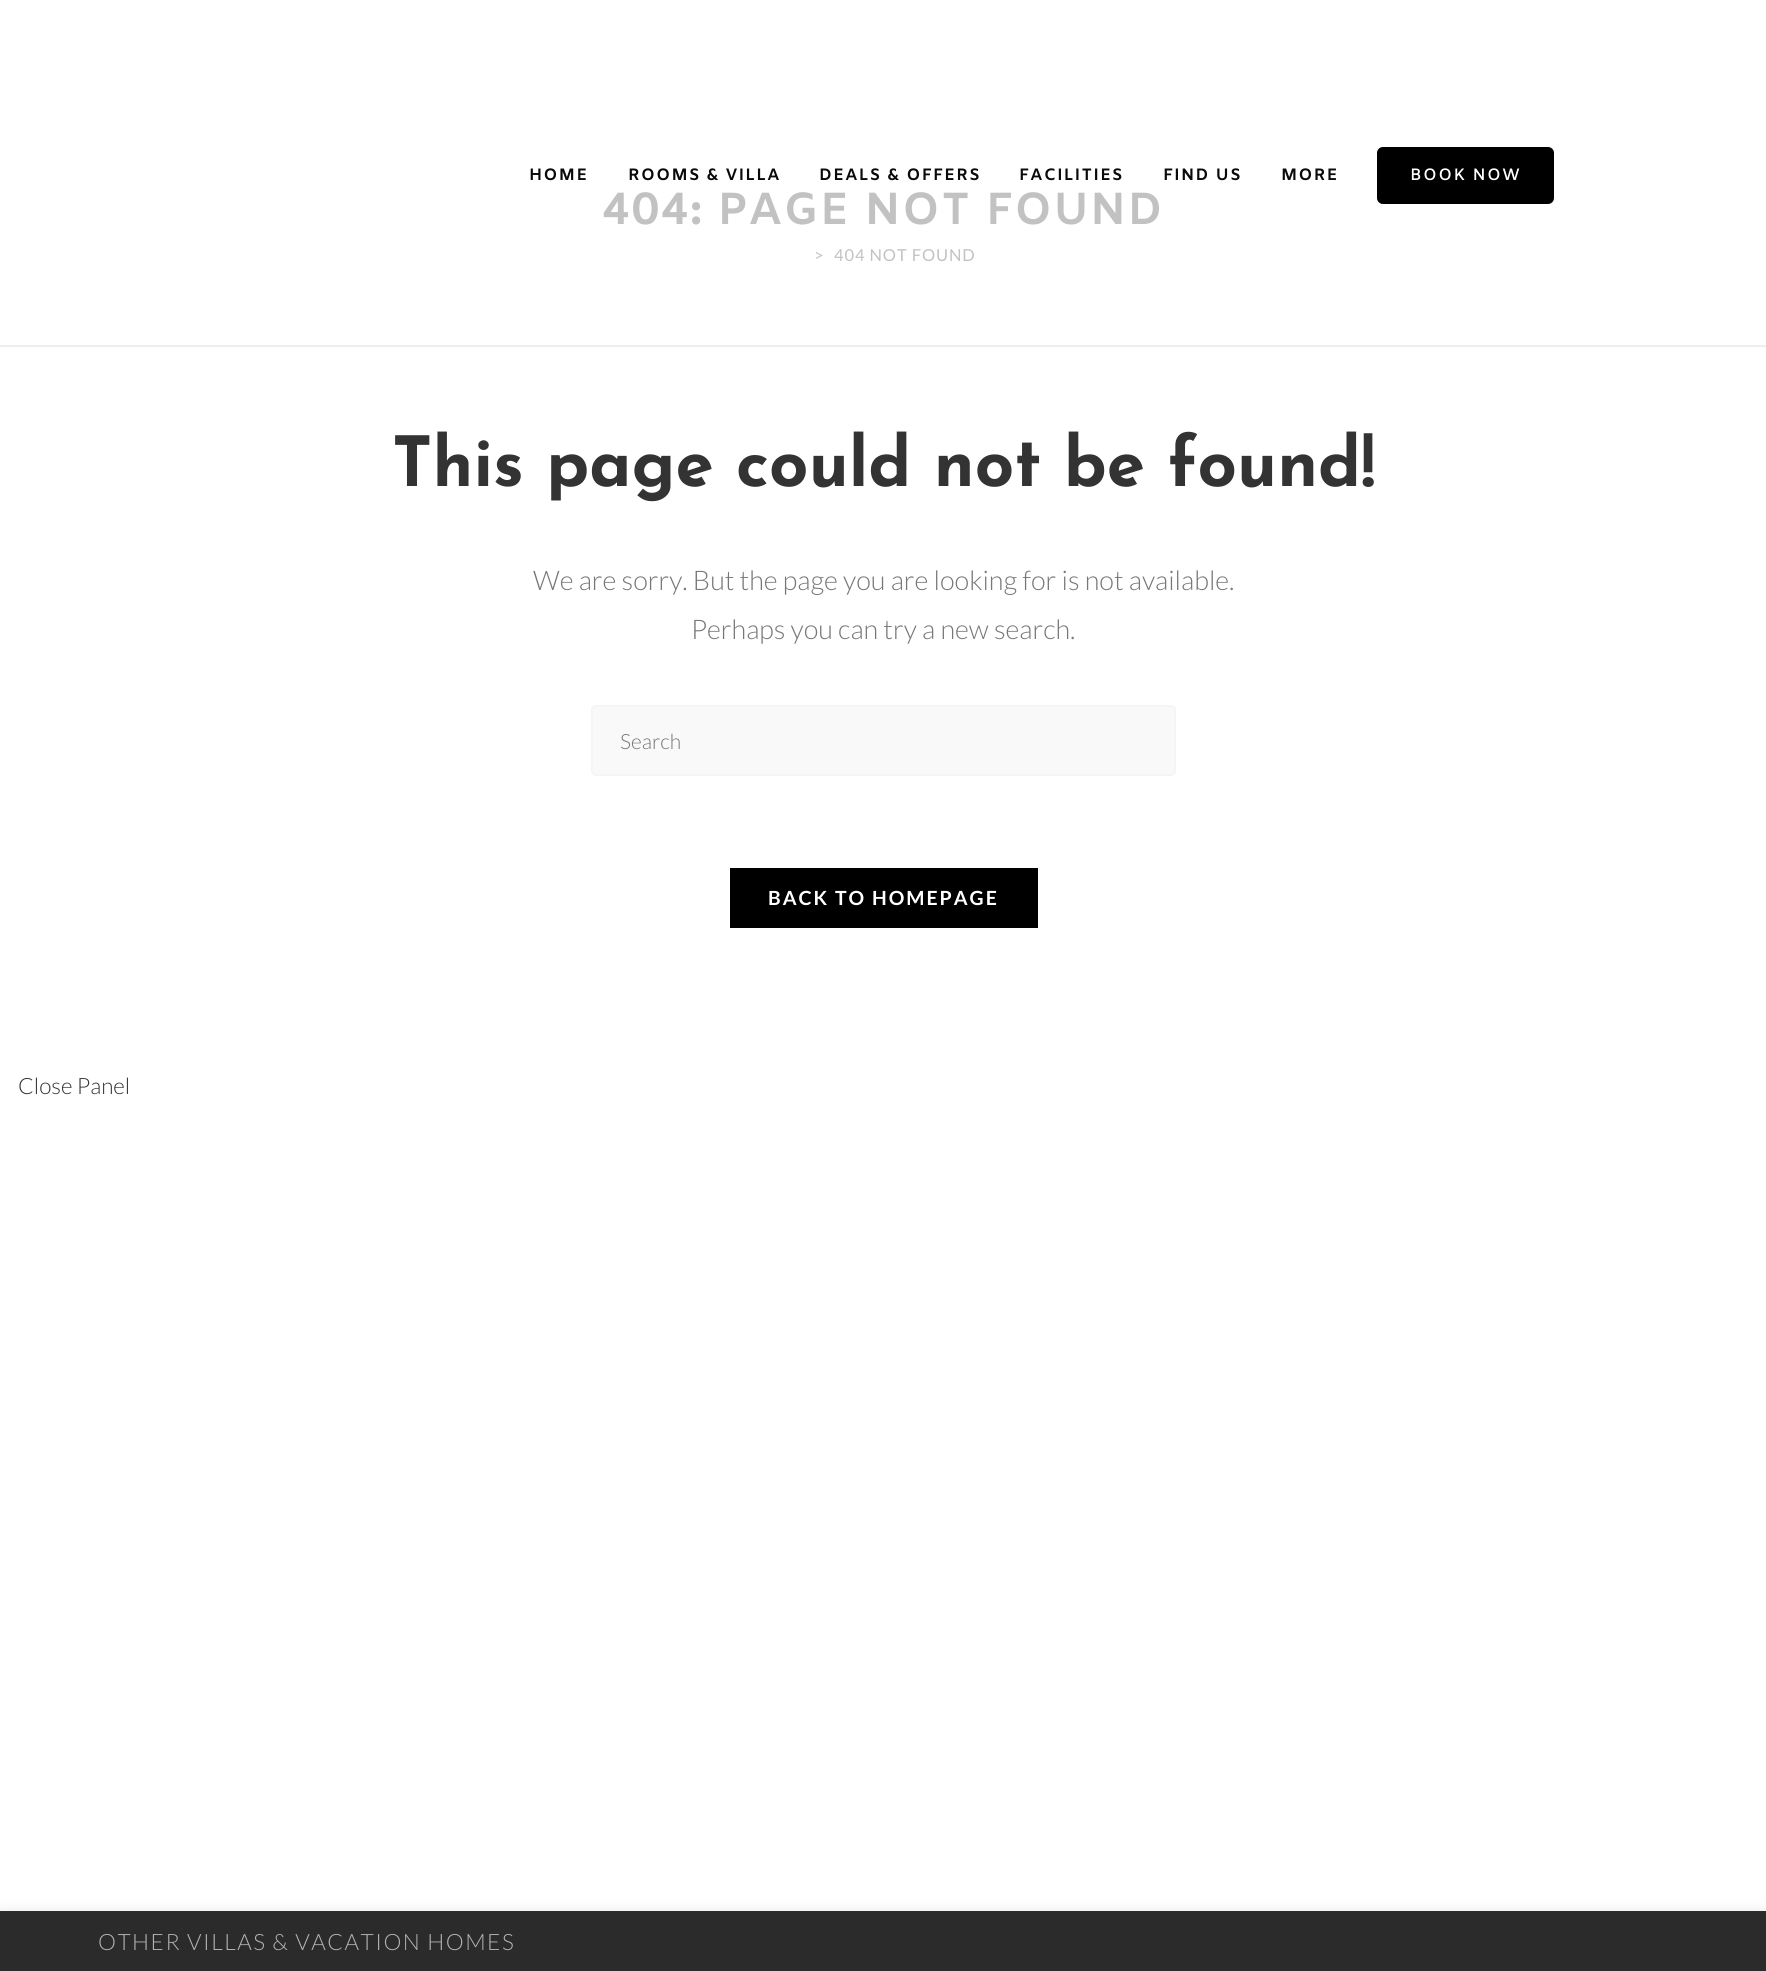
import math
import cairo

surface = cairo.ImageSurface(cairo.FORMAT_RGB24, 1766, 1971)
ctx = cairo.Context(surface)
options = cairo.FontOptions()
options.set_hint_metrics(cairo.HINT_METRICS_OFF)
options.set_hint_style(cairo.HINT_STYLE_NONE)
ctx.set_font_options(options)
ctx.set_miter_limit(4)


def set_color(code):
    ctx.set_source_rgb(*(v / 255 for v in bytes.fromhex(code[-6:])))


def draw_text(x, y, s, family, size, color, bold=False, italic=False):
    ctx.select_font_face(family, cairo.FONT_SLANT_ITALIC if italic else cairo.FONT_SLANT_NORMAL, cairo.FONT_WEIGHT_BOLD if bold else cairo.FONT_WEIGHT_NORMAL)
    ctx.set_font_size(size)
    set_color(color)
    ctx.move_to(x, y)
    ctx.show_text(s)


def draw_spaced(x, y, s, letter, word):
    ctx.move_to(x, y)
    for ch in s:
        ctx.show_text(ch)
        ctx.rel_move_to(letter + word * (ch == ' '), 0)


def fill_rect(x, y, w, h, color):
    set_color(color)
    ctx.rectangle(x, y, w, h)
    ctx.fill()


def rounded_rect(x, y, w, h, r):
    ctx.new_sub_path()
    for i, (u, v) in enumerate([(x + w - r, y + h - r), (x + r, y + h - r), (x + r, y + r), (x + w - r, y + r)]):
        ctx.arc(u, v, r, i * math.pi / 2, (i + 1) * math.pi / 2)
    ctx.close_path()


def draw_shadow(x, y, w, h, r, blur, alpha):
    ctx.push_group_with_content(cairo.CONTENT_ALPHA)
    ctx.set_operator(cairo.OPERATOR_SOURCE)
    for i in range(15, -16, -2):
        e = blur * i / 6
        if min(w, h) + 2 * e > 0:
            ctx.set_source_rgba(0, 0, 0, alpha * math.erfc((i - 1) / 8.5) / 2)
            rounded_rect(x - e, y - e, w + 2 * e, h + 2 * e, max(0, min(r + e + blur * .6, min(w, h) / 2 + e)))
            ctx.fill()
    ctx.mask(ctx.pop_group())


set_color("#ffffff")
ctx.paint()
draw_text(18, 1094, "Close Panel", "Lato Light", 22.5, "#333333")
ctx.select_font_face("Amiko", cairo.FONT_SLANT_NORMAL, cairo.FONT_WEIGHT_BOLD)
ctx.set_font_size(16.5)
set_color("#0a0a0a")
draw_spaced(529, 180, "HOME", 1.4, 0)
draw_spaced(628, 180, "ROOMS & VILLA", 1.4, 0)
draw_spaced(819, 180, "DEALS & OFFERS", 1.4, 0)
draw_spaced(1019, 180, "FACILITIES", 1.4, 0)
draw_spaced(1163, 180, "FIND US", 1.4, 0)
draw_spaced(1281, 180, "MORE", 1.4, 0)
set_color("#000000")
rounded_rect(1377, 147, 177, 57, 6)
ctx.fill()
ctx.select_font_face("Amiko SemiBold")
set_color("#ffffff")
draw_spaced(1410, 180, "BOOK NOW", 1.4, 0)
fill_rect(0, 345, 1766, 2, "#eeeeee")
ctx.select_font_face("Amiko", cairo.FONT_SLANT_NORMAL, cairo.FONT_WEIGHT_BOLD)
ctx.set_font_size(45)
set_color("#c2c2c2")
draw_spaced(602, 224, "404: PAGE NOT FOUND", 1.5, 0)
ctx.select_font_face("Lato")
ctx.set_font_size(16.5)
draw_spaced(814, 261, ">", 0.9, 0)
draw_spaced(834, 261, "404 NOT FOUND", 0.9, 0)
draw_text(392, 486, "This page could not be found!", "Josefin Sans", 69, "#333333", bold=True)
draw_text(533, 590, "We are sorry. But the page you are looking for is not available.", "Lato Light", 27, "#777777")
draw_text(691, 639, "Perhaps you can try a new search.", "Lato Light", 27, "#777777")
set_color("#f9f9f9")
rounded_rect(592, 706, 583, 69, 4)
ctx.fill_preserve()
set_color("#f5f5f5")
ctx.stroke()
draw_text(620, 749, "Search", "Lato Light", 21, "#777777")
fill_rect(730, 868, 308, 60, "#000000")
ctx.select_font_face("Lato", cairo.FONT_SLANT_NORMAL, cairo.FONT_WEIGHT_BOLD)
ctx.set_font_size(19.5)
set_color("#ffffff")
draw_spaced(768, 905, "BACK TO HOMEPAGE", 2, 0)
set_color("#1a1a1a")
draw_shadow(0, 1911, 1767, 60, 0, 6, 0.1)
fill_rect(0, 1911, 1766, 60, "#2b2b2b")
ctx.select_font_face("Lato Light")
ctx.set_font_size(22.5)
set_color("#b2b2b2")
draw_spaced(98, 1950, "OTHER VILLAS & VACATION HOMES", 1.5, 0)
surface.write_to_png("output.png")
